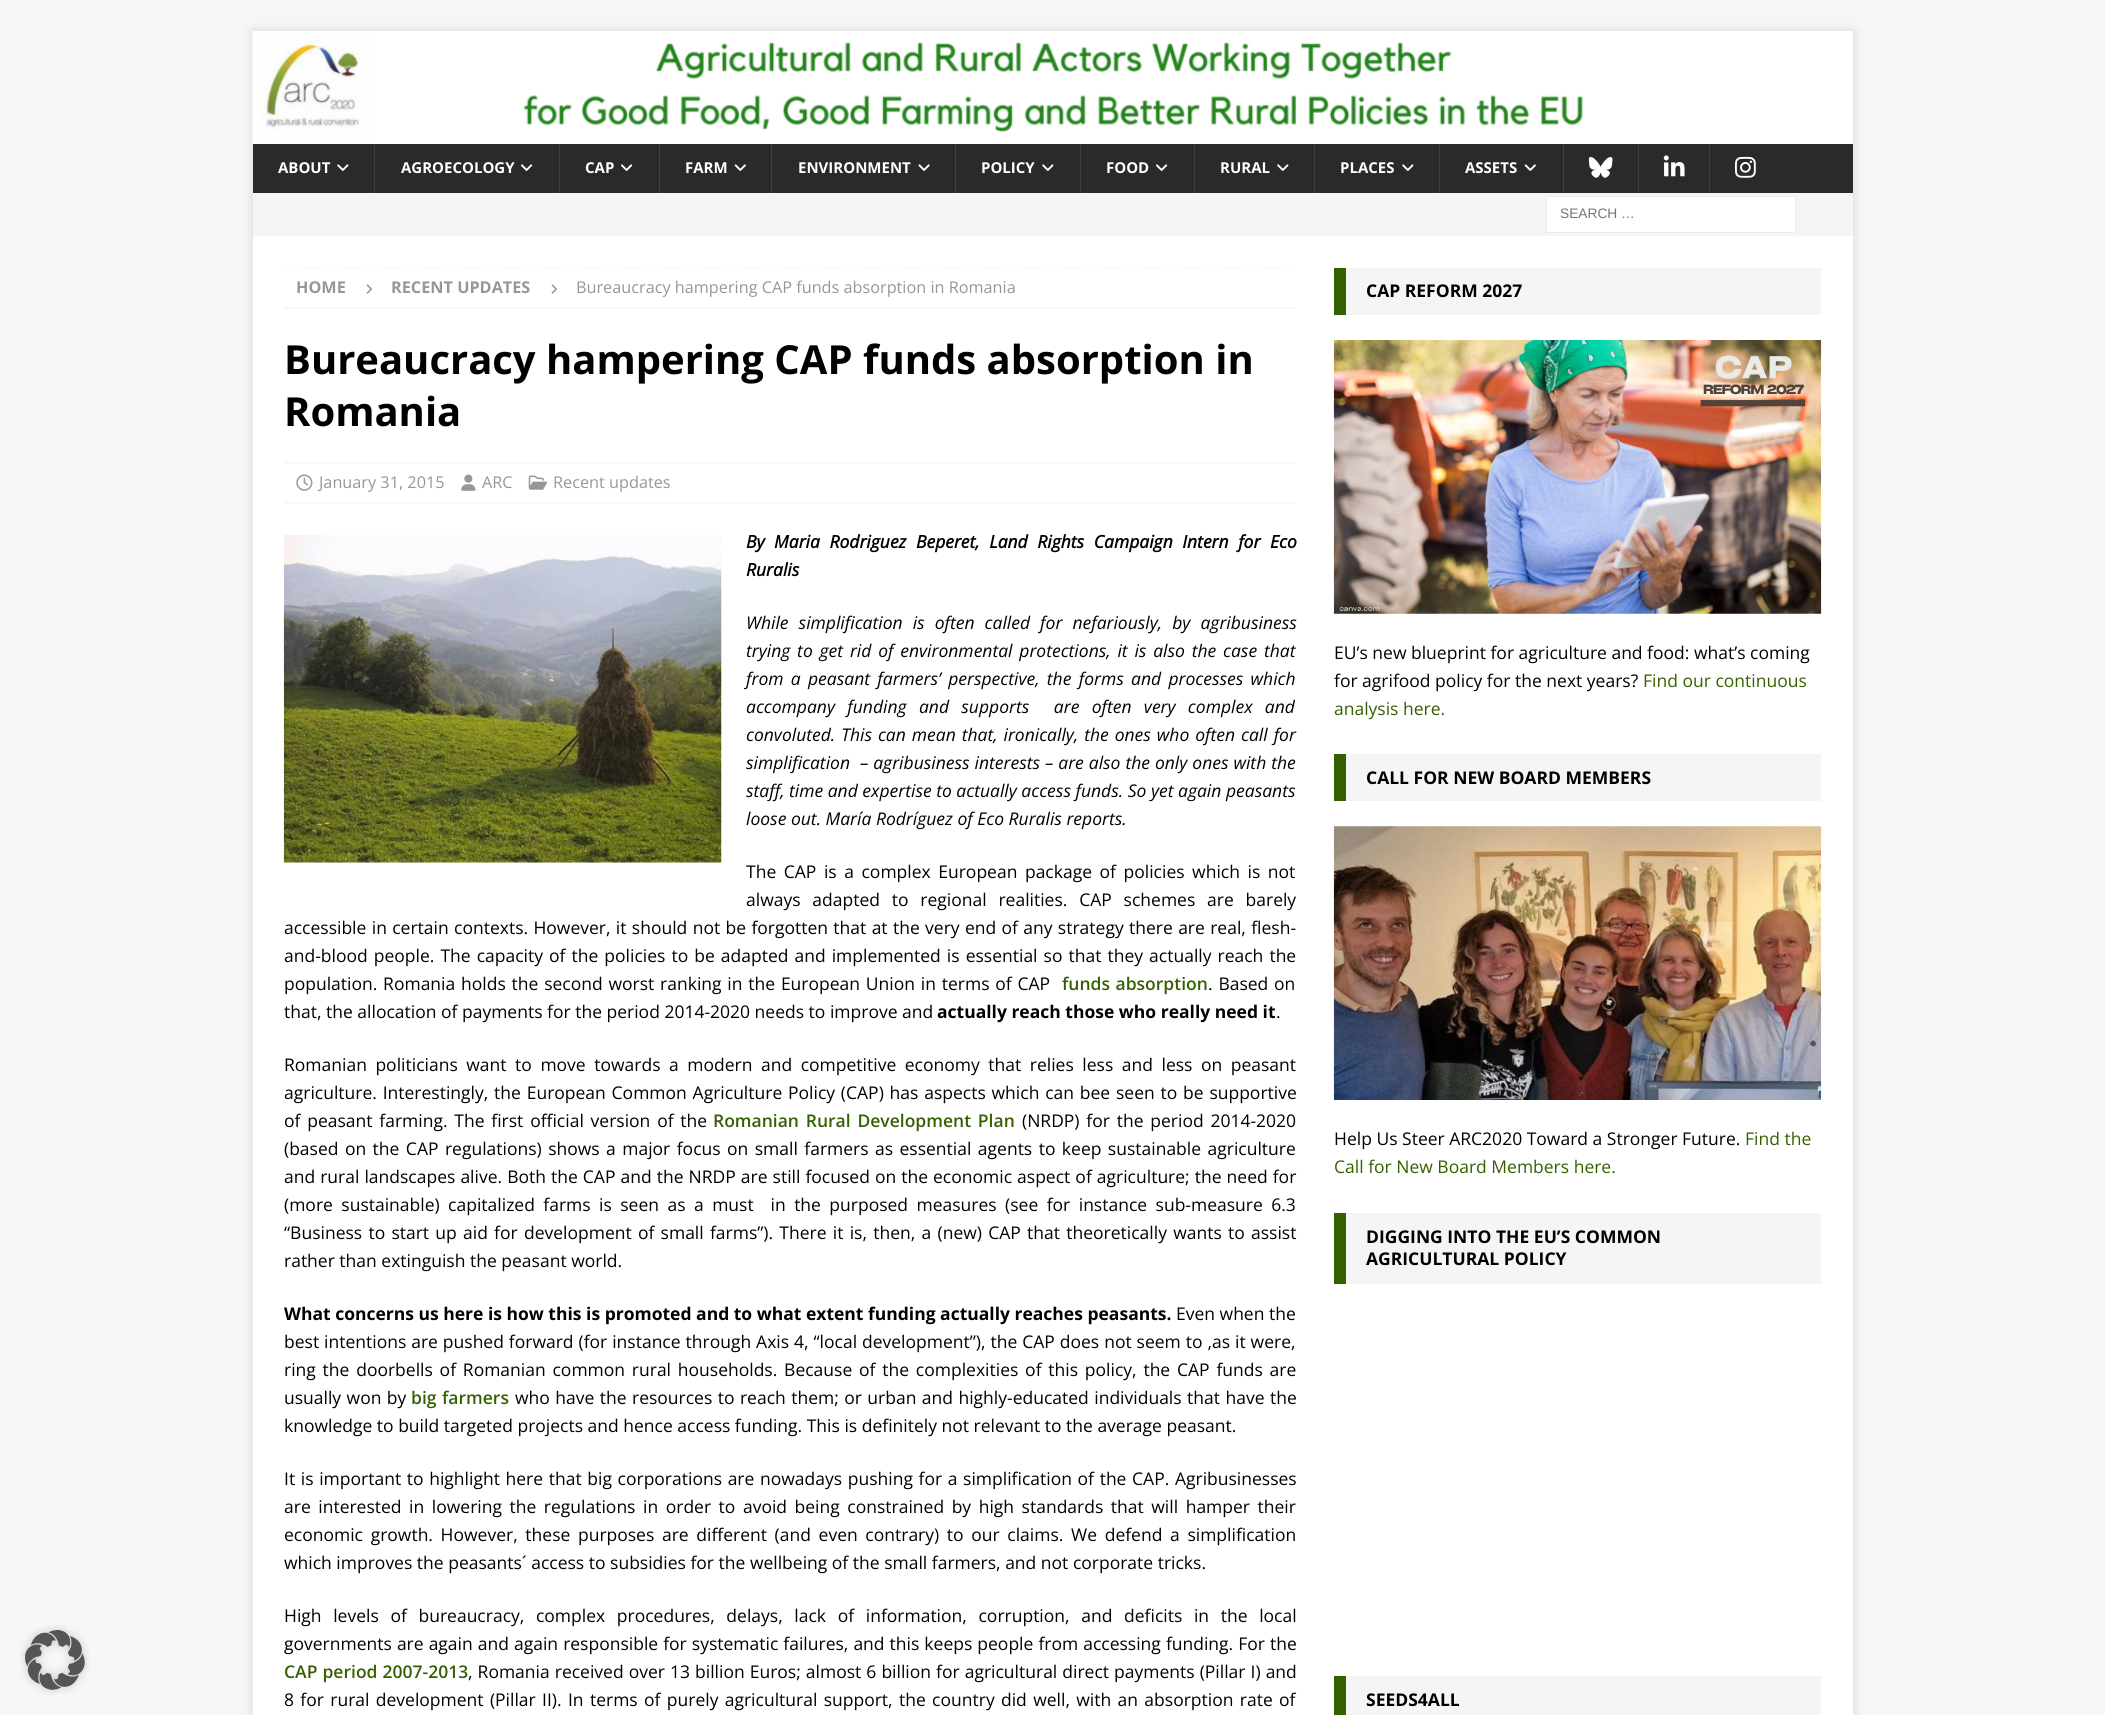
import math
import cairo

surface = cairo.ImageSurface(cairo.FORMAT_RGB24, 2105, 1715)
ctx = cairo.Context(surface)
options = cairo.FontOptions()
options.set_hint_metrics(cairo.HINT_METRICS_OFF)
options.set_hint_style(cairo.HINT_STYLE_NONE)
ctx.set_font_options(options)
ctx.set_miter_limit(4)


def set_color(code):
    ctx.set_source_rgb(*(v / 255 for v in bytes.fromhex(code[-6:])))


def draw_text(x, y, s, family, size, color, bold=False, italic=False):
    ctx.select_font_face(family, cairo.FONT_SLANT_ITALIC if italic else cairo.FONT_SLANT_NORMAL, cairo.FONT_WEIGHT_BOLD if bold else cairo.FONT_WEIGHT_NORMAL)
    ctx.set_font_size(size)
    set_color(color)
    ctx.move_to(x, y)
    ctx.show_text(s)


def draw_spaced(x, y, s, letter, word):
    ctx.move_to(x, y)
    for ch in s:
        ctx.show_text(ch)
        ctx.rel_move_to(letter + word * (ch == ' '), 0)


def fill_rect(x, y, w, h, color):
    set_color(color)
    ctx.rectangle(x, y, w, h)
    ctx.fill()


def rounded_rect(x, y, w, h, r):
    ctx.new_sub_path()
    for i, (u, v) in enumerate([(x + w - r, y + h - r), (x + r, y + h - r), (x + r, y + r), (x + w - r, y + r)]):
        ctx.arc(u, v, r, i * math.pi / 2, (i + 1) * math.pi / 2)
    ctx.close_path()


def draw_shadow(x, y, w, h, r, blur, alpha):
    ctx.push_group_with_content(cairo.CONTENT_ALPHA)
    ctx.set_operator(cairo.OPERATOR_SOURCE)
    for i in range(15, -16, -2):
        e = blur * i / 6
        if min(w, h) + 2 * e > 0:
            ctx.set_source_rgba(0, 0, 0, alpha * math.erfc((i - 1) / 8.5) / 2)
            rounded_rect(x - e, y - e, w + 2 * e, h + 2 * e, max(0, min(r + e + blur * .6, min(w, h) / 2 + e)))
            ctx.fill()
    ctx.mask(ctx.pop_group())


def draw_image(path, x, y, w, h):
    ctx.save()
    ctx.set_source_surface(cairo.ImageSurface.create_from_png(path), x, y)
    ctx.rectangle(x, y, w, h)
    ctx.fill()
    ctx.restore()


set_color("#f7f7f7")
ctx.paint()
draw_image("assets/img1.png", 20, 1625, 70, 70)
set_color("#323232")
draw_shadow(253, 31, 1600, 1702, 0, 6, 0.17)
fill_rect(253, 31, 1600, 113, "#ffffff")
draw_image("assets/img2.png", 252, 31, 1331, 113)
fill_rect(253, 144, 1600, 49, "#2a2a2a")
draw_text(278, 173, "ABOUT", "Open Sans", 15, "#ffffff", bold=True)
draw_image("assets/img3.png", 337, 164, 12, 7)
fill_rect(374, 144, 1, 49, "#3f3f3f")
draw_text(401, 173, "AGROECOLOGY", "Open Sans", 15, "#ffffff", bold=True)
draw_image("assets/img4.png", 521, 164, 12, 7)
fill_rect(559, 144, 1, 49, "#3f3f3f")
draw_text(585, 173, "CAP", "Open Sans", 15, "#ffffff", bold=True)
draw_image("assets/img4.png", 621, 164, 12, 7)
fill_rect(659, 144, 1, 49, "#3f3f3f")
draw_text(685, 173, "FARM", "Open Sans", 15, "#ffffff", bold=True)
draw_image("assets/img5.png", 734, 164, 12, 7)
fill_rect(771, 144, 1, 49, "#3f3f3f")
draw_text(798, 173, "ENVIRONMENT", "Open Sans", 15, "#ffffff", bold=True)
draw_image("assets/img6.png", 918, 164, 12, 7)
fill_rect(955, 144, 1, 49, "#3f3f3f")
draw_text(981, 173, "POLICY", "Open Sans", 15, "#ffffff", bold=True)
draw_image("assets/img3.png", 1042, 164, 12, 7)
fill_rect(1080, 144, 1, 49, "#3f3f3f")
draw_text(1106, 173, "FOOD", "Open Sans", 15, "#ffffff", bold=True)
draw_image("assets/img4.png", 1156, 164, 12, 7)
fill_rect(1194, 144, 1, 49, "#3f3f3f")
draw_text(1220, 173, "RURAL", "Open Sans", 15, "#ffffff", bold=True)
draw_image("assets/img3.png", 1277, 164, 12, 7)
fill_rect(1314, 144, 1, 49, "#3f3f3f")
draw_text(1340, 173, "PLACES", "Open Sans", 15, "#ffffff", bold=True)
draw_image("assets/img3.png", 1402, 164, 12, 7)
fill_rect(1439, 144, 1, 49, "#3f3f3f")
draw_text(1465, 173, "ASSETS", "Open Sans", 15, "#ffffff", bold=True)
draw_image("assets/img5.png", 1524, 164, 12, 7)
fill_rect(1563, 144, 1, 49, "#3f3f3f")
draw_image("assets/img7.png", 1588, 157, 25, 21)
fill_rect(1638, 144, 1, 49, "#3f3f3f")
draw_image("assets/img8.png", 1663, 155, 22, 22)
fill_rect(1709, 144, 1, 49, "#3f3f3f")
draw_image("assets/img9.png", 1735, 156, 21, 22)
fill_rect(253, 193, 1600, 43, "#f5f5f5")
set_color("#ffffff")
ctx.rectangle(1546.5, 196.5, 249, 36)
ctx.fill_preserve()
set_color("#ebebeb")
ctx.set_line_width(1)
ctx.stroke()
draw_text(1560, 218, "SEARCH …", "Liberation Sans", 13.75, "#757575")
fill_rect(253, 236, 1600, 1479, "#ffffff")
ctx.save()
ctx.rectangle(284, 268, 1012, 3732)
ctx.clip()
ctx.new_path()
ctx.move_to(284, 268)
ctx.line_to(1296, 268)
set_color("#ebebeb")
ctx.set_line_width(1.2)
ctx.set_dash([1.25, 1.25])
ctx.stroke()
ctx.restore()
ctx.new_path()
ctx.move_to(284, 308)
ctx.line_to(1296, 308)
set_color("#ebebeb")
ctx.set_line_width(1.2)
ctx.set_dash([1.25, 1.25])
ctx.stroke()
draw_text(296, 293, "HOME", "Open Sans", 16.25, "#979797", bold=True)
draw_image("assets/img10.png", 366, 284, 6, 10)
draw_text(391, 293, "RECENT UPDATES", "Open Sans", 16.25, "#979797", bold=True)
draw_image("assets/img10.png", 551, 284, 6, 10)
draw_text(576, 293, "Bureaucracy hampering CAP funds absorption in Romania", "Open Sans", 16.25, "#979797")
draw_text(284, 374, "Bureaucracy hampering CAP funds absorption in", "Open Sans", 40, "#000000", bold=True)
draw_text(284, 426, "Romania", "Open Sans", 40, "#000000", bold=True)
ctx.new_path()
ctx.move_to(284, 463)
ctx.line_to(1296, 463)
set_color("#ebebeb")
ctx.stroke()
ctx.new_path()
ctx.move_to(284, 503)
ctx.line_to(1296, 503)
ctx.stroke()
draw_image("assets/img11.png", 296, 474, 17, 17)
draw_text(319, 488, "January 31, 2015", "Open Sans", 16.25, "#979797")
draw_image("assets/img12.png", 461, 474, 15, 17)
draw_text(482, 488, "ARC", "Open Sans", 16.25, "#979797")
draw_image("assets/img13.png", 528, 475, 19, 15)
draw_text(553, 488, "Recent updates", "Open Sans", 16.25, "#979797")
draw_image("assets/img14.png", 283, 535, 439, 328)
ctx.select_font_face("Open Sans", cairo.FONT_SLANT_ITALIC, cairo.FONT_WEIGHT_BOLD)
ctx.set_font_size(17.5)
set_color("#000000")
draw_spaced(746, 548, "By Maria Rodriguez Beperet, Land Rights Campaign Intern for Eco", 0, 5)
draw_text(746, 576, "Ruralis", "Open Sans", 17.5, "#000000", bold=True, italic=True)
ctx.select_font_face("Open Sans", cairo.FONT_SLANT_ITALIC)
draw_spaced(746, 629, "While simplification is often called for nefariously, by agribusiness", 0, 5.5)
draw_spaced(746, 657, "trying to get rid of environmental protections, it is also the case that", 0, 2.25)
draw_spaced(746, 685, "from a peasant farmers’ perspective, the forms and processes which", 0, 2.75)
draw_spaced(746, 713, "accompany funding and supports  are often very complex and", 0, 7.75)
draw_spaced(746, 741, "convoluted. This can mean that, ironically, the ones who often call for", 0, 1.4)
draw_spaced(746, 769, "simplification  – agribusiness interests – are also the only ones with the", 0, 0.4)
draw_text(746, 797, "staff, time and expertise to actually access funds. So yet again peasants", "Open Sans", 17.5, "#000000", italic=True)
draw_text(746, 825, "loose out. María Rodríguez of Eco Ruralis reports.", "Open Sans", 17.5, "#000000", italic=True)
ctx.select_font_face("Open Sans")
draw_spaced(746, 878, "The CAP is a complex European package of policies which is not", 0, 3)
draw_spaced(746, 906, "always adapted to regional realities. CAP schemes are barely", 0, 7.25)
draw_spaced(284, 934, "accessible in certain contexts. However, it should not be forgotten that at the very end of any strategy there are real, flesh-", 0, 0.8)
draw_spaced(284, 962, "and-blood people. The capacity of the policies to be adapted and implemented is essential so that they actually reach the", 0, 1.5)
draw_spaced(284, 990, "population. Romania holds the second worst ranking in the European Union in terms of CAP", 0, 1.25)
ctx.select_font_face("Open Sans SemiBold")
set_color("#356000")
draw_spaced(1062, 990, "funds absorption", 0, 1)
ctx.select_font_face("Open Sans")
set_color("#000000")
draw_spaced(1208, 990, ". Based on", 0, 1.25)
draw_text(284, 1018, "that, the allocation of payments for the period 2014-2020 needs to improve and", "Open Sans", 17.5, "#000000")
draw_text(937, 1018, "actually reach those who really need it", "Open Sans", 17.5, "#000000", bold=True)
draw_text(1276, 1018, ".", "Open Sans", 17.5, "#000000")
draw_spaced(284, 1071, "Romanian politicians want to move towards a modern and competitive economy that relies less and less on peasant", 0, 4)
draw_spaced(284, 1099, "agriculture. Interestingly, the European Common Agriculture Policy (CAP) has aspects which can bee seen to be supportive", 0, 1.25)
draw_spaced(284, 1127, "of peasant farming. The first official version of the", 0, 2.25)
ctx.select_font_face("Open Sans SemiBold")
set_color("#356000")
draw_spaced(713, 1127, "Romanian Rural Development Plan", 0, 2.25)
ctx.select_font_face("Open Sans")
set_color("#000000")
draw_spaced(1022, 1127, "(NRDP) for the period 2014-2020", 0, 2.25)
draw_spaced(284, 1155, "(based on the CAP regulations) shows a major focus on small farmers as essential agents to keep sustainable agriculture", 0, 1.9)
draw_spaced(284, 1183, "and rural landscapes alive. Both the CAP and the NRDP are still focused on the economic aspect of agriculture; the need for", 0, 0.5)
draw_spaced(284, 1211, "(more sustainable) capitalized farms is seen as a must  in the purposed measures (see for instance sub-measure 6.3", 0, 3.9)
draw_spaced(284, 1239, "“Business to start up aid for development of small farms”). There it is, then, a (new) CAP that theoretically wants to assist", 0, 1.7)
draw_text(284, 1267, "rather than extinguish the peasant world.", "Open Sans", 17.5, "#000000")
draw_text(284, 1320, "What concerns us here is how this is promoted and to what extent funding actually reaches peasants.", "Open Sans", 17.5, "#000000", bold=True)
draw_text(1176, 1320, "Even when the", "Open Sans", 17.5, "#000000")
draw_spaced(284, 1348, "best intentions are pushed forward (for instance through Axis 4, “local development”), the CAP does not seem to ,as it were,", 0, 0.4)
draw_spaced(284, 1376, "ring the doorbells of Romanian common rural households. Because of the complexities of this policy, the CAP funds are", 0, 2.25)
draw_spaced(284, 1404, "usually won by", 0, 0.9)
ctx.select_font_face("Open Sans SemiBold")
set_color("#356000")
draw_spaced(411, 1404, "big farmers", 0, 1)
ctx.select_font_face("Open Sans")
set_color("#000000")
draw_spaced(515, 1404, "who have the resources to reach them; or urban and highly-educated individuals that have the", 0, 0.9)
draw_text(284, 1432, "knowledge to build targeted projects and hence access funding. This is definitely not relevant to the average peasant.", "Open Sans", 17.5, "#000000")
draw_spaced(284, 1485, "It is important to highlight here that big corporations are nowadays pushing for a simplification of the CAP. Agribusinesses", 0, 1.1)
draw_spaced(284, 1513, "are interested in lowering the regulations in order to avoid being constrained by high standards that will hamper their", 0, 3)
draw_spaced(284, 1541, "economic growth. However, these purposes are different (and even contrary) to our claims. We defend a simplification", 0, 3.1)
draw_text(284, 1569, "which improves the peasants´ access to subsidies for the wellbeing of the small farmers, and not corporate tricks.", "Open Sans", 17.5, "#000000")
draw_spaced(284, 1622, "High levels of bureaucracy, complex procedures, delays, lack of information, corruption, and deficits in the local", 0, 7.1)
draw_spaced(284, 1650, "governments are again and again responsible for systematic failures, and this keeps people from accessing funding. For the", 0, 0.5)
ctx.select_font_face("Open Sans SemiBold")
set_color("#356000")
draw_spaced(284, 1678, "CAP period 2007-2013", 0, 0.5)
ctx.select_font_face("Open Sans")
set_color("#000000")
draw_spaced(468, 1678, ", Romania received over 13 billion Euros; almost 6 billion for agricultural direct payments (Pillar I) and", 0, 0.5)
draw_spaced(284, 1706, "8 for rural development (Pillar II). In terms of purely agricultural support, the country did well, with an absorption rate of", 0, 1.8)
fill_rect(1346, 268, 475, 47, "#f5f5f5")
fill_rect(1334, 268, 12, 47, "#356000")
draw_text(1366, 297, "CAP REFORM 2027", "Open Sans", 17.5, "#000000", bold=True)
draw_image("assets/img15.png", 1333, 340, 489, 274)
draw_text(1334, 659, "EU’s new blueprint for agriculture and food: what’s coming", "Open Sans", 17.5, "#000000")
draw_text(1334, 687, "for agrifood policy for the next years?", "Open Sans", 17.5, "#000000")
draw_text(1643, 687, "Find our continuous", "Open Sans", 17.5, "#356000")
draw_text(1334, 715, "analysis here.", "Open Sans", 17.5, "#356000")
fill_rect(1346, 754, 475, 47, "#f5f5f5")
fill_rect(1334, 754, 12, 47, "#356000")
draw_text(1366, 784, "CALL FOR NEW BOARD MEMBERS", "Open Sans", 17.5, "#000000", bold=True)
draw_image("assets/img16.png", 1333, 826, 489, 274)
draw_text(1334, 1145, "Help Us Steer ARC2020 Toward a Stronger Future.", "Open Sans", 17.5, "#000000")
draw_text(1745, 1145, "Find the", "Open Sans", 17.5, "#356000")
draw_text(1334, 1173, "Call for New Board Members here.", "Open Sans", 17.5, "#356000")
fill_rect(1346, 1213, 475, 71, "#f5f5f5")
fill_rect(1334, 1213, 12, 71, "#356000")
draw_text(1366, 1243, "DIGGING INTO THE EU’S COMMON", "Open Sans", 17.5, "#000000", bold=True)
draw_text(1366, 1265, "AGRICULTURAL POLICY", "Open Sans", 17.5, "#000000", bold=True)
fill_rect(1346, 1676, 475, 39, "#f5f5f5")
fill_rect(1334, 1676, 12, 39, "#356000")
draw_text(1366, 1706, "SEEDS4ALL", "Open Sans", 17.5, "#000000", bold=True)
surface.write_to_png("output.png")
